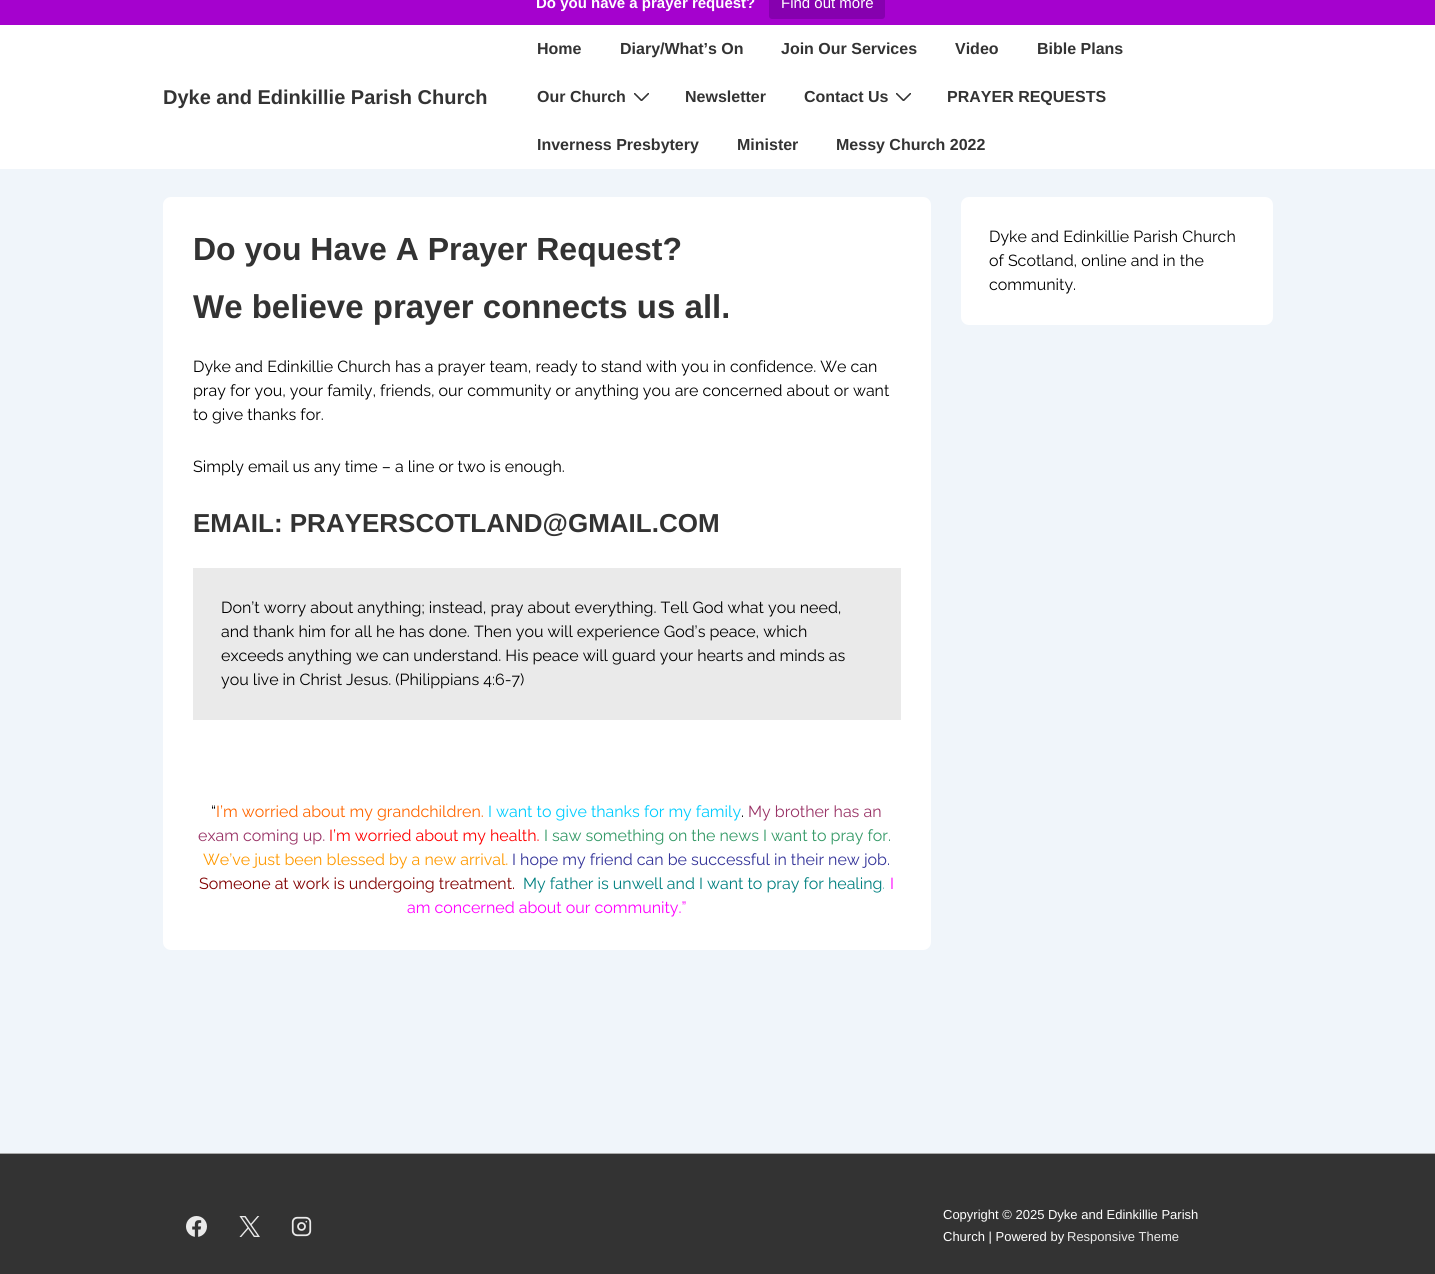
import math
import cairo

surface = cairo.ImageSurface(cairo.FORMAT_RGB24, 1435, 1274)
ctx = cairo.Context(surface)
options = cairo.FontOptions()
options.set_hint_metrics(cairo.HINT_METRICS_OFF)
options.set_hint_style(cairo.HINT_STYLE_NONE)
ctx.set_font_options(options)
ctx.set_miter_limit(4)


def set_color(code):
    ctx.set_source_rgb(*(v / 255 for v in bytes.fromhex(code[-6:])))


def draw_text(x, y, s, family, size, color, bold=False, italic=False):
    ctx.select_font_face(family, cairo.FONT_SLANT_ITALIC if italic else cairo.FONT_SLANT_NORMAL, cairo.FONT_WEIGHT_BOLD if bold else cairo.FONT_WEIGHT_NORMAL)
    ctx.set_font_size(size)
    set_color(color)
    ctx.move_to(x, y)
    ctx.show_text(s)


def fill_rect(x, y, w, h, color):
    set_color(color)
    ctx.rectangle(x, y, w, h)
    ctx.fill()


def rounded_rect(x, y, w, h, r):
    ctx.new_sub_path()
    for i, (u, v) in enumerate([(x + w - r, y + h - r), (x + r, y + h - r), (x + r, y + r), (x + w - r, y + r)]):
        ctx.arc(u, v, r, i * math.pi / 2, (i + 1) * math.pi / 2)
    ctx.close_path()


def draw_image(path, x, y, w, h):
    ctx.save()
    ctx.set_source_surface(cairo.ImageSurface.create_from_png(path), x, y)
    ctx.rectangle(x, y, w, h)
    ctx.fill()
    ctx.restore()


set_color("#f0f5fa")
ctx.paint()
fill_rect(0, 0, 1435, 25, "#a502ce")
draw_text(536, 8, "Do you have a prayer request?", "Liberation Sans", 15, "#ffffff", bold=True)
set_color("#8600af")
rounded_rect(769, -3, 116, 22, 3)
ctx.fill()
draw_text(781, 8, "Find out more", "Liberation Sans", 15, "#ffffff")
fill_rect(0, 25, 1435, 144, "#ffffff")
draw_text(163, 104, "Dyke and Edinkillie Parish Church", "Liberation Sans", 20, "#333333", bold=True)
draw_text(537, 54, "Home", "Liberation Sans", 16, "#333333", bold=True)
draw_text(620, 54, "Diary/What’s On", "Liberation Sans", 16, "#333333", bold=True)
draw_text(781, 54, "Join Our Services", "Liberation Sans", 16, "#333333", bold=True)
draw_text(955, 54, "Video", "Liberation Sans", 16, "#333333", bold=True)
draw_text(1037, 54, "Bible Plans", "Liberation Sans", 16, "#333333", bold=True)
draw_text(537, 102, "Our Church", "Liberation Sans", 16, "#333333", bold=True)
ctx.save()
ctx.rectangle(634, 93, 15, 8)
ctx.clip()
ctx.new_path()
ctx.move_to(634.5, 93.5)
ctx.line_to(641.5, 100.5)
ctx.line_to(648.5, 93.5)
ctx.set_line_width(1.6)
ctx.set_line_cap(cairo.LINE_CAP_ROUND)
ctx.stroke()
ctx.restore()
draw_text(685, 102, "Newsletter", "Liberation Sans", 16, "#333333", bold=True)
draw_text(804, 102, "Contact Us", "Liberation Sans", 16, "#333333", bold=True)
ctx.save()
ctx.rectangle(896, 93, 15, 8)
ctx.clip()
ctx.new_path()
ctx.move_to(896.5, 93.5)
ctx.line_to(903.5, 100.5)
ctx.line_to(910.5, 93.5)
ctx.set_line_width(1.6)
ctx.set_line_cap(cairo.LINE_CAP_ROUND)
ctx.stroke()
ctx.restore()
draw_text(947, 102, "PRAYER REQUESTS", "Liberation Sans", 16, "#333333", bold=True)
draw_text(537, 150, "Inverness Presbytery", "Liberation Sans", 16, "#333333", bold=True)
draw_text(737, 150, "Minister", "Liberation Sans", 16, "#333333", bold=True)
draw_text(836, 150, "Messy Church 2022", "Liberation Sans", 16, "#333333", bold=True)
set_color("#ffffff")
rounded_rect(163, 197, 768, 753, 8)
ctx.fill()
draw_text(193, 260, "Do you Have A Prayer Request?", "Liberation Sans", 32, "#333333", bold=True)
draw_text(193, 318, "We believe prayer connects us all.", "Liberation Sans", 33, "#333333", bold=True)
draw_text(193, 372, "Dyke and Edinkillie Church has a prayer team, ready to stand with you in confidence. We can", "Raleway Thin", 16, "#000000")
draw_text(193, 396, "pray for you, your family, friends, our community or anything you are concerned about or want", "Raleway Thin", 16, "#000000")
draw_text(193, 420, "to give thanks for.", "Raleway Thin", 16, "#000000")
draw_text(193, 472, "Simply email us any time – a line or two is enough.", "Raleway Thin", 16, "#000000")
draw_text(193, 532, "EMAIL: PRAYERSCOTLAND@GMAIL.COM", "Liberation Sans", 26, "#333333", bold=True)
fill_rect(193, 568, 708, 152, "#eaeaea")
draw_text(221, 613, "Don’t worry about anything; instead, pray about everything. Tell God what you need,", "Raleway Thin", 16, "#000000")
draw_text(221, 637, "and thank him for all he has done. Then you will experience God’s peace, which", "Raleway Thin", 16, "#000000")
draw_text(221, 661, "exceeds anything we can understand. His peace will guard your hearts and minds as", "Raleway Thin", 16, "#000000")
draw_text(221, 685, "you live in Christ Jesus. (Philippians 4:6-7)", "Raleway Thin", 16, "#000000")
draw_text(211, 817, "“", "Raleway Thin", 16, "#000000")
draw_text(216, 817, "I’m worried about my grandchildren.", "Raleway Thin", 16, "#ff6600")
draw_text(488, 817, "I want to give thanks for my family", "Raleway Thin", 16, "#00ccff")
draw_text(741, 817, ".", "Raleway Thin", 16, "#000000")
draw_text(748, 817, "My brother has an", "Raleway Thin", 16, "#993366")
draw_text(198, 841, "exam coming up.", "Raleway Thin", 16, "#993366")
draw_text(329, 841, "I’m worried about my health.", "Raleway Thin", 16, "#ff0000")
draw_text(544, 841, "I saw something on the news I want to pray for.", "Raleway Thin", 16, "#339966")
draw_text(203, 865, "We’ve just been blessed by a new arrival.", "Raleway Thin", 16, "#ff9900")
draw_text(512, 865, "I hope my friend can be successful in their new job.", "Raleway Thin", 16, "#333399")
draw_text(199, 889, "Someone at work is undergoing treatment.", "Raleway Thin", 16, "#800000")
draw_text(523, 889, "My father is unwell and I want to pray for healing.", "Raleway Thin", 16, "#008080")
draw_text(890, 889, "I", "Raleway Thin", 16, "#ff00ff")
draw_text(407, 913, "am concerned about our community.”", "Raleway Thin", 16, "#ff00ff")
set_color("#ffffff")
rounded_rect(961, 197, 312, 128, 8)
ctx.fill()
draw_text(989, 242, "Dyke and Edinkillie Parish Church", "Raleway Thin", 16, "#000000")
draw_text(989, 266, "of Scotland, online and in the", "Raleway Thin", 16, "#000000")
draw_text(989, 290, "community.", "Raleway Thin", 16, "#000000")
fill_rect(0, 1154, 1435, 120, "#333333")
fill_rect(0, 1153, 1435, 1, "#aaaaaa")
draw_image("assets/img1.png", 186, 1216, 21, 21)
draw_image("assets/img2.png", 239, 1216, 21, 21)
draw_image("assets/img3.png", 291, 1216, 21, 21)
draw_text(943, 1219, "Copyright © 2025 Dyke and Edinkillie Parish", "Liberation Sans", 13, "#ffffff")
draw_text(943, 1241, "Church | Powered by", "Liberation Sans", 13, "#ffffff")
draw_text(1067, 1241, "Responsive Theme", "Liberation Sans", 13, "#eaeaea")
surface.write_to_png("output.png")
